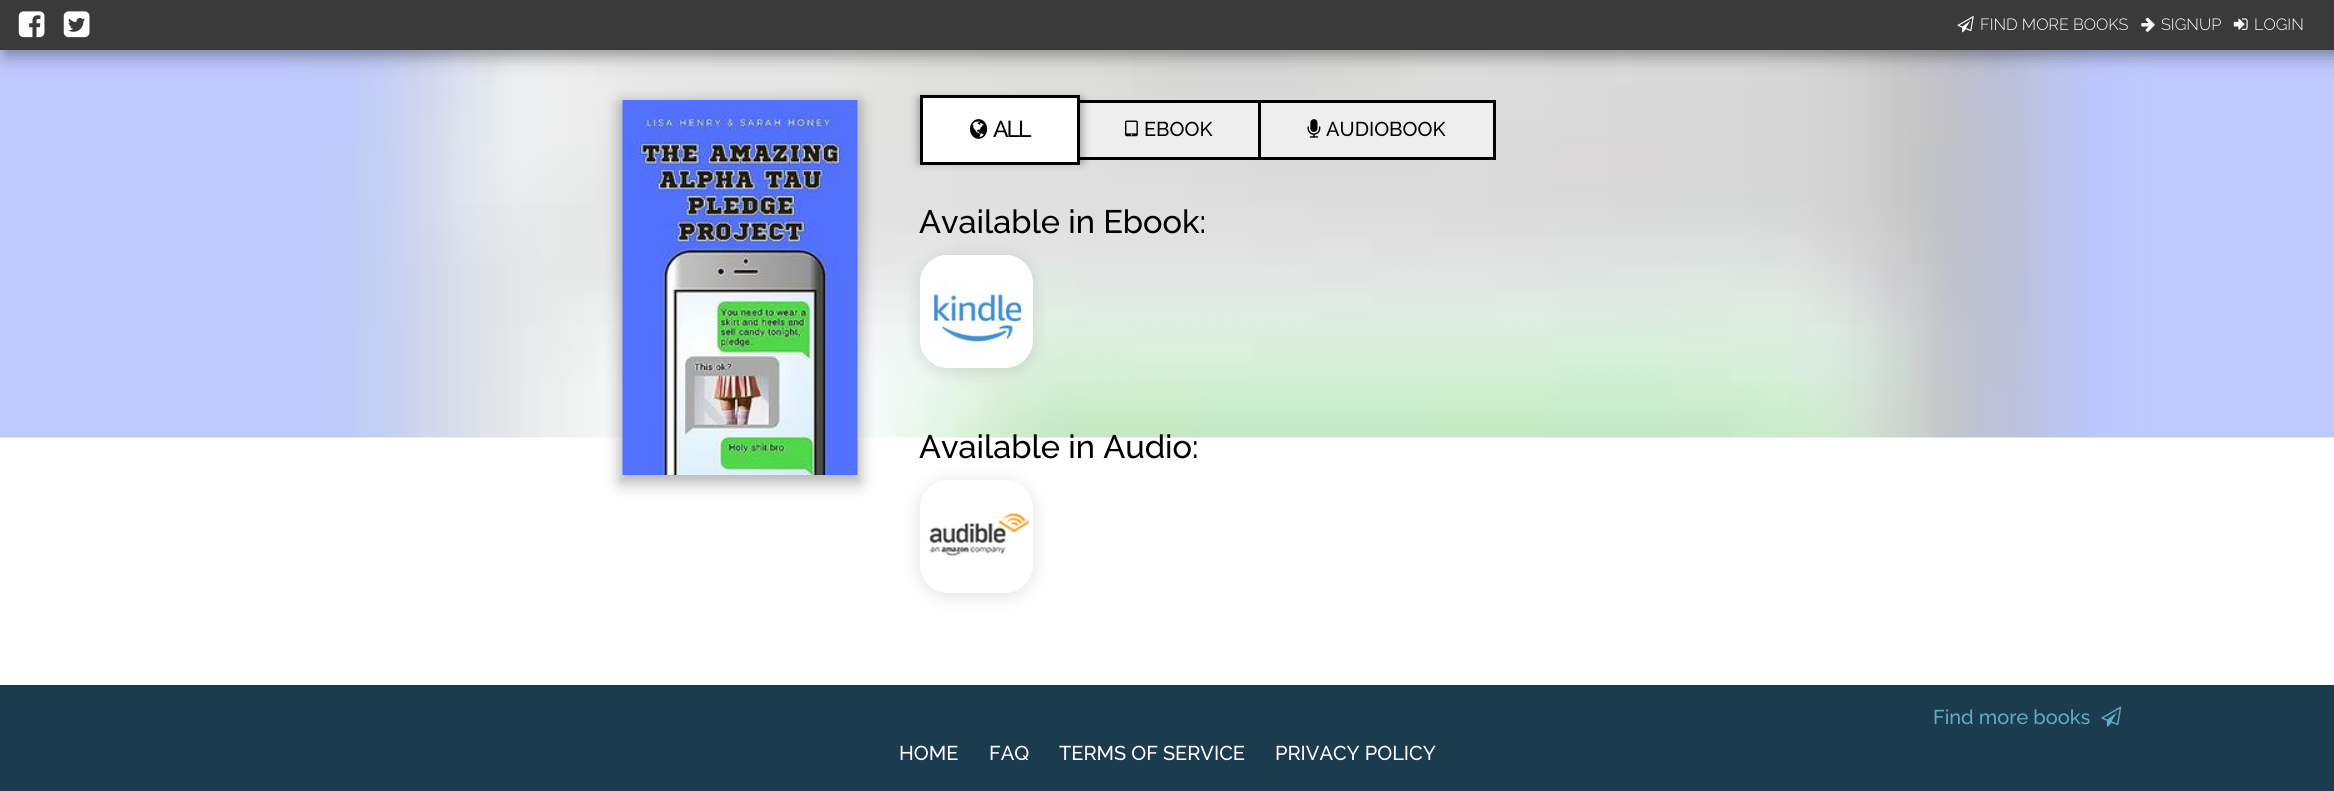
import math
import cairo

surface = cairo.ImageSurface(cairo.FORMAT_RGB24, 2334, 791)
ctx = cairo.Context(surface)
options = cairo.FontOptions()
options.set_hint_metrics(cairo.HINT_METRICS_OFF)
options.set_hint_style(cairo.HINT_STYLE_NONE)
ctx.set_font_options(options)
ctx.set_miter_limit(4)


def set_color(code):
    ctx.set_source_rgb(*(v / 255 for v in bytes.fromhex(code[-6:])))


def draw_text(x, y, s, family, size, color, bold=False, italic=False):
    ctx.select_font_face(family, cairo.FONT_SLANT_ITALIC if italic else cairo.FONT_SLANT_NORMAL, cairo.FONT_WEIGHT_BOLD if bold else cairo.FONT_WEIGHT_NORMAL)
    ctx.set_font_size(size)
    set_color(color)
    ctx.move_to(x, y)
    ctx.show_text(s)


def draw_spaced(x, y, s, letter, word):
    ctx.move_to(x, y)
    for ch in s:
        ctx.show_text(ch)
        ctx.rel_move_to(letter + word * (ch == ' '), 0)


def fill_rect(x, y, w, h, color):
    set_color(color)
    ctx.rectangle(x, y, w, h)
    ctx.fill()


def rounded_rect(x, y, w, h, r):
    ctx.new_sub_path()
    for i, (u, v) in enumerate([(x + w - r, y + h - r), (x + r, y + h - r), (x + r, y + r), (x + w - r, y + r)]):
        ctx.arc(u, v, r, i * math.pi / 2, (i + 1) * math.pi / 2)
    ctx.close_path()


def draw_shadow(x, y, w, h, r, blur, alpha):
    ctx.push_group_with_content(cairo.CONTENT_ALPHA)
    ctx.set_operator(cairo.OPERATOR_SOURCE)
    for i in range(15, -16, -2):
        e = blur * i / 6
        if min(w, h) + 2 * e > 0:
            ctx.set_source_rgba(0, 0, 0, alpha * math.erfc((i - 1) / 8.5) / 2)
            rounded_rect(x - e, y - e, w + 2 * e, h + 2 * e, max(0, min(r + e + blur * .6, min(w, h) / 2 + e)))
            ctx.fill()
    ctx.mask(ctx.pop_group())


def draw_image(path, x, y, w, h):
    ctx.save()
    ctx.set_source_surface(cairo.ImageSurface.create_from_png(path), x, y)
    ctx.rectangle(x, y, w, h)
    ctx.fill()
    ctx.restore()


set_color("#ffffff")
ctx.paint()
draw_image("assets/img1.png", 0, 50, 2334, 388)
set_color("#000000")
draw_shadow(5, 5, 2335, 50, 0, 9, 0.4)
fill_rect(0, 0, 2334, 50, "#3a3a3a")
draw_image("assets/img2.png", 18, 11, 27, 27)
draw_image("assets/img3.png", 63, 11, 27, 27)
draw_image("assets/img4.png", 1957, 16, 17, 17)
draw_text(1980, 30, "FIND MORE BOOKS", "Raleway Light", 16.25, "#ffffff")
draw_image("assets/img5.png", 2141, 17, 14, 15)
draw_text(2161, 30, "SIGNUP", "Raleway Light", 16.25, "#ffffff")
draw_image("assets/img6.png", 2233, 18, 15, 12)
draw_text(2254, 30, "LOGIN", "Raleway Light", 16.25, "#ffffff")
set_color("#000000")
draw_shadow(620, 103, 240, 380, 0, 7.5, 0.3)
draw_image("assets/img7.png", 622, 100, 236, 375)
fill_rect(1080, 103, 178, 54, "#eeeeee")
ctx.rectangle(1076.5, 101.5, 185, 57)
set_color("#000000")
ctx.set_line_width(3)
ctx.stroke()
set_color("#000000")
draw_shadow(918, 98, 165, 65, 0, 4, 0.3)
set_color("#ffffff")
ctx.rectangle(921.5, 96.5, 157, 67)
ctx.fill_preserve()
set_color("#000000")
ctx.stroke()
draw_image("assets/img8.png", 970, 119, 18, 20)
ctx.select_font_face("Raleway Medium")
ctx.set_font_size(23)
draw_spaced(993, 137, "ALL", -2, 0)
draw_image("assets/img9.png", 1125, 120, 13, 17)
draw_text(1144, 136, "EBOOK", "Raleway Medium", 20, "#000000")
set_color("#eeeeee")
ctx.rectangle(1259.5, 101.5, 235, 57)
ctx.fill_preserve()
set_color("#000000")
ctx.stroke()
draw_image("assets/img10.png", 1307, 119, 14, 19)
draw_text(1326, 136, "AUDIOBOOK", "Raleway Medium", 20, "#000000")
set_color("#000000")
draw_shadow(918, 255, 117, 118, 30, 7.5, 0.1)
draw_text(919, 233, "Available in Ebook:", "Raleway Medium", 32.5, "#000000")
set_color("#ffffff")
rounded_rect(920, 255, 113, 113, 28)
ctx.fill()
draw_image("assets/img11.png", 920, 255, 112, 111)
set_color("#000000")
draw_shadow(918, 480, 117, 118, 30, 7.5, 0.1)
draw_text(919, 458, "Available in Audio:", "Raleway Medium", 32.5, "#000000")
set_color("#ffffff")
rounded_rect(920, 480, 113, 113, 28)
ctx.fill()
draw_image("assets/img12.png", 927, 513, 102, 43)
fill_rect(0, 685, 2334, 106, "#1b3b4f")
draw_text(1933, 724, "Find more books", "Raleway Medium", 20, "#63aac5")
draw_image("assets/img13.png", 2101, 706, 21, 21)
draw_text(899, 760, "HOME", "Raleway Medium", 20, "#ffffff")
draw_text(989, 760, "FAQ", "Raleway Medium", 20, "#ffffff")
draw_text(1059, 760, "TERMS OF SERVICE", "Raleway Medium", 20, "#ffffff")
draw_text(1275, 760, "PRIVACY POLICY", "Raleway Medium", 20, "#ffffff")
surface.write_to_png("output.png")
